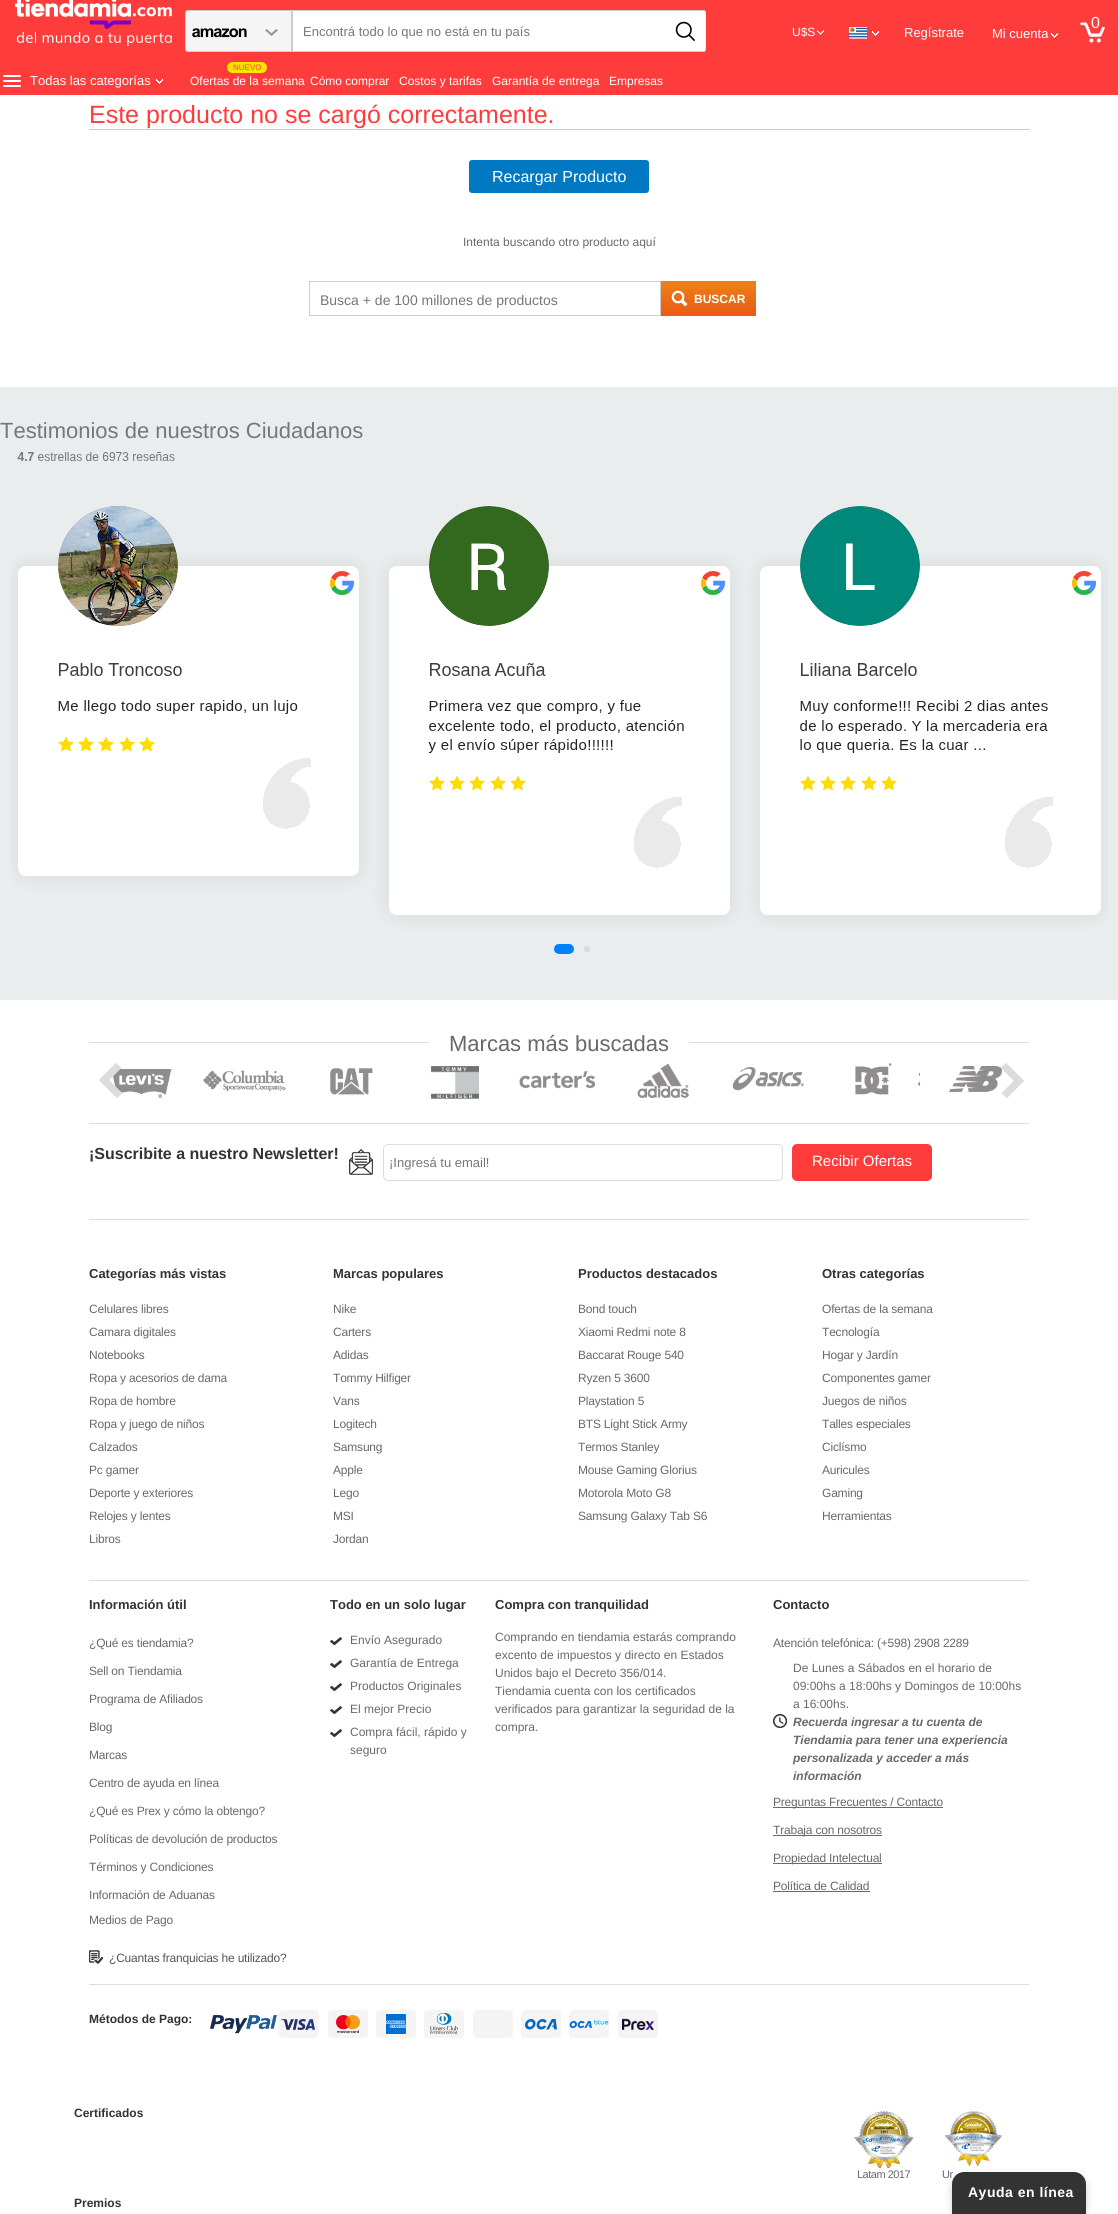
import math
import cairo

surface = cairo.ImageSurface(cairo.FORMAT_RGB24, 1118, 2214)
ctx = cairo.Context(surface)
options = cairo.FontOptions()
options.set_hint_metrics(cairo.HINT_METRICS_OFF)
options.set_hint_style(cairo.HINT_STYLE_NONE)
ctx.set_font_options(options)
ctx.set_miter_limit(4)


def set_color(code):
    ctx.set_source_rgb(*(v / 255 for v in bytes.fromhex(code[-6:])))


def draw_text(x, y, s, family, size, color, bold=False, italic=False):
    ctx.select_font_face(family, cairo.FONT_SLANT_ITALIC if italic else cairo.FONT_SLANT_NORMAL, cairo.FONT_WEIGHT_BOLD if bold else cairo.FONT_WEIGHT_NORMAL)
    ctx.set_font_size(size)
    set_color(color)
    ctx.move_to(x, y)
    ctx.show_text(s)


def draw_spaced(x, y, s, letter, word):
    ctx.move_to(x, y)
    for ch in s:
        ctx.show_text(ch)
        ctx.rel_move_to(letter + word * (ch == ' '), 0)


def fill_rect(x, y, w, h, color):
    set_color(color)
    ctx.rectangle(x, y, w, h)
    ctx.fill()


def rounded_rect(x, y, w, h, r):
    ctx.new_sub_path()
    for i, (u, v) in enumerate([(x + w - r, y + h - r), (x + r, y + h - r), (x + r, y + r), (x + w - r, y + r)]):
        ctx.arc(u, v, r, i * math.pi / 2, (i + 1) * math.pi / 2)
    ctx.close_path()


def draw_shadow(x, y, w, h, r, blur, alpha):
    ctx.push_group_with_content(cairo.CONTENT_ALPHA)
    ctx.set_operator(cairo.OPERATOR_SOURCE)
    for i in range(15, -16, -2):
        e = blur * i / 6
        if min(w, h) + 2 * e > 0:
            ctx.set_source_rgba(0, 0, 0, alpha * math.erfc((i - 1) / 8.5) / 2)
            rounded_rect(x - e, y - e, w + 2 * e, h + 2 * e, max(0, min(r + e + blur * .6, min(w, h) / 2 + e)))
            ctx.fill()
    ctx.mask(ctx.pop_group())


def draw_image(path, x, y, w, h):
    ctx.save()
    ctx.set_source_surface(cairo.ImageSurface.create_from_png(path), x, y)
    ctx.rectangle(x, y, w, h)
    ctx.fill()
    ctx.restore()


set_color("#ffffff")
ctx.paint()
fill_rect(0, 0, 1118, 95, "#ff3c3c")
draw_image("assets/img1.png", 15, 0, 157, 46)
set_color("#f6f5f5")
ctx.new_path()
ctx.move_to(188, 10.5)
ctx.line_to(291.5, 10.5)
ctx.line_to(291.5, 51.5)
ctx.line_to(188, 51.5)
ctx.curve_to(186.5, 51.5, 185.5, 50.5, 185.5, 49)
ctx.line_to(185.5, 13)
ctx.curve_to(185.5, 11.5, 186.5, 10.5, 188, 10.5)
ctx.close_path()
ctx.fill_preserve()
set_color("#cdcccb")
ctx.set_line_width(1)
ctx.stroke()
draw_image("assets/img2.png", 192, 28, 55, 10)
draw_image("assets/img3.png", 265, 29, 13, 7)
set_color("#ffffff")
ctx.new_path()
ctx.move_to(292, 10)
ctx.line_to(703, 10)
ctx.curve_to(704.5, 10, 706, 11.5, 706, 13)
ctx.line_to(706, 49)
ctx.curve_to(706, 50.5, 704.5, 52, 703, 52)
ctx.line_to(292, 52)
ctx.close_path()
ctx.fill()
fill_rect(292, 10, 413, 1, "#cdcdcd")
fill_rect(292, 51, 413, 1, "#cdcdcd")
fill_rect(292, 10, 1, 42, "#cdcdcd")
draw_text(303, 36, "Encontrá todo lo que no está en tu país", "Liberation Sans", 13, "#777777")
draw_image("assets/img4.png", 675, 21, 20, 20)
draw_image("assets/img5.png", 1080, 22, 25, 21)
draw_text(1091, 28, "0", "Liberation Sans", 16, "#ffffff")
draw_text(792, 36, "U$S", "Liberation Sans", 12, "#ffffff")
draw_image("assets/img6.png", 817, 30, 7, 5)
draw_image("assets/img7.png", 849, 27, 18, 14)
draw_image("assets/img8.png", 872, 31, 7, 5)
draw_text(904, 37, "Regístrate", "Liberation Sans", 13, "#ffffff")
draw_text(992, 38, "Mi cuenta", "Liberation Sans", 13, "#ffffff")
draw_image("assets/img8.png", 1051, 33, 7, 5)
draw_image("assets/img9.png", 3, 75, 18, 12)
draw_text(30, 85, "Todas las categorías", "Liberation Sans", 13, "#ffffff")
draw_image("assets/img8.png", 156, 79, 7, 5)
set_color("#fce300")
rounded_rect(227, 62, 40, 11, 5.5)
ctx.fill()
draw_text(233, 70, "NUEVO", "Liberation Sans", 8, "#ff3c3c")
draw_text(190, 85, "Ofertas de la semana", "Liberation Sans", 12, "#ffffff")
draw_text(310, 85, "Cómo comprar", "Liberation Sans", 12, "#ffffff")
draw_text(399, 85, "Costos y tarifas", "Liberation Sans", 12, "#ffffff")
draw_text(492, 85, "Garantía de entrega", "Liberation Sans", 12, "#ffffff")
draw_text(609, 85, "Empresas", "Liberation Sans", 12, "#ffffff")
fill_rect(89, 129, 941, 1, "#cccccc")
draw_text(89, 123, "Este producto no se cargó correctamente.", "Liberation Sans", 25, "#ff3c3c")
set_color("#0078c2")
rounded_rect(469, 160, 180, 33, 3)
ctx.fill()
draw_text(492, 182, "Recargar Producto", "Liberation Sans", 16, "#ffffff")
draw_text(463, 246, "Intenta buscando otro producto aquí", "Liberation Sans", 12, "#696969")
ctx.rectangle(309.5, 281.5, 351, 34)
set_color("#cdcdcd")
ctx.stroke()
draw_text(320, 305, "Busca + de 100 millones de productos", "Liberation Sans", 14, "#777777")
fill_rect(661, 281, 95, 8, "#ee7c17")
draw_image("assets/img10.png", 661, 289, 95, 27)
draw_image("assets/img11.png", 671, 290, 17, 17)
draw_text(694, 303, "BUSCAR", "Liberation Sans", 12, "#ffffff", bold=True)
fill_rect(0, 387, 1118, 613, "#eaeded")
draw_text(0, 438, "Testimonios de nuestros Ciudadanos", "Liberation Sans", 22, "#777777")
draw_image("assets/img12.png", 11, 452, 1097, 502)
fill_rect(89, 1042, 940, 1, "#dddddd")
fill_rect(429, 1042, 260, 1, "#ffffff")
draw_text(449, 1051, "Marcas más buscadas", "Liberation Sans", 22, "#696969")
draw_image("assets/img14.png", 112, 1069, 60, 30)
draw_image("assets/img13.png", 99, 1063, 23, 35)
draw_image("assets/img15.png", 203, 1070, 83, 21)
draw_image("assets/img16.png", 330, 1068, 43, 27)
draw_image("assets/img17.png", 431, 1066, 48, 33)
draw_image("assets/img18.png", 519, 1071, 78, 18)
draw_image("assets/img19.png", 637, 1063, 52, 35)
draw_image("assets/img20.png", 732, 1067, 72, 24)
draw_image("assets/img21.png", 855, 1063, 65, 32)
draw_image("assets/img22.png", 949, 1066, 54, 26)
draw_image("assets/img23.png", 1001, 1063, 23, 35)
fill_rect(89, 1123, 940, 1, "#dddddd")
fill_rect(89, 1219, 940, 1, "#dddddd")
draw_text(89, 1159, "¡Suscribite a nuestro Newsletter!", "Liberation Sans", 16, "#333333", bold=True)
draw_image("assets/img24.png", 349, 1149, 24, 26)
rounded_rect(383.5, 1144.5, 399, 36, 4.5)
set_color("#dddddd")
ctx.stroke()
draw_text(389, 1167, "¡Ingresá tu email!", "Liberation Sans", 13, "#777777")
set_color("#ff3c3c")
rounded_rect(792, 1144, 140, 37, 5)
ctx.fill()
draw_text(812, 1166, "Recibir Ofertas", "Liberation Sans", 15, "#ffffff")
fill_rect(89, 1580, 940, 1, "#dddddd")
draw_text(89, 1278, "Categorías más vistas", "Liberation Sans", 13, "#333333", bold=True)
ctx.select_font_face("Liberation Sans")
ctx.set_font_size(12)
set_color("#696969")
draw_spaced(89, 1313, "Celulares libres", -0.2, 0)
draw_spaced(89, 1336, "Camara digitales", -0.2, 0)
draw_spaced(89, 1359, "Notebooks", -0.2, 0)
draw_spaced(89, 1382, "Ropa y acesorios de dama", -0.2, 0)
draw_spaced(89, 1405, "Ropa de hombre", -0.2, 0)
draw_spaced(89, 1428, "Ropa y juego de niños", -0.2, 0)
draw_spaced(89, 1451, "Calzados", -0.2, 0)
draw_spaced(89, 1474, "Pc gamer", -0.2, 0)
draw_spaced(89, 1497, "Deporte y exteriores", -0.2, 0)
draw_spaced(89, 1520, "Relojes y lentes", -0.2, 0)
draw_spaced(89, 1543, "Libros", -0.2, 0)
draw_text(333, 1278, "Marcas populares", "Liberation Sans", 13, "#333333", bold=True)
ctx.select_font_face("Liberation Sans")
ctx.set_font_size(12)
set_color("#696969")
draw_spaced(333, 1313, "Nike", -0.2, 0)
draw_spaced(333, 1336, "Carters", -0.2, 0)
draw_spaced(333, 1359, "Adidas", -0.2, 0)
draw_spaced(333, 1382, "Tommy Hilfiger", -0.2, 0)
draw_spaced(333, 1405, "Vans", -0.2, 0)
draw_spaced(333, 1428, "Logitech", -0.2, 0)
draw_spaced(333, 1451, "Samsung", -0.2, 0)
draw_spaced(333, 1474, "Apple", -0.2, 0)
draw_spaced(333, 1497, "Lego", -0.2, 0)
draw_spaced(333, 1520, "MSI", -0.2, 0)
draw_spaced(333, 1543, "Jordan", -0.2, 0)
draw_text(578, 1278, "Productos destacados", "Liberation Sans", 13, "#333333", bold=True)
ctx.select_font_face("Liberation Sans")
ctx.set_font_size(12)
set_color("#696969")
draw_spaced(578, 1313, "Bond touch", -0.2, 0)
draw_spaced(578, 1336, "Xiaomi Redmi note 8", -0.2, 0)
draw_spaced(578, 1359, "Baccarat Rouge 540", -0.2, 0)
draw_spaced(578, 1382, "Ryzen 5 3600", -0.2, 0)
draw_spaced(578, 1405, "Playstation 5", -0.2, 0)
draw_spaced(578, 1428, "BTS Light Stick Army", -0.2, 0)
draw_spaced(578, 1451, "Termos Stanley", -0.2, 0)
draw_spaced(578, 1474, "Mouse Gaming Glorius", -0.2, 0)
draw_spaced(578, 1497, "Motorola Moto G8", -0.2, 0)
draw_spaced(578, 1520, "Samsung Galaxy Tab S6", -0.2, 0)
draw_text(822, 1278, "Otras categorías", "Liberation Sans", 13, "#333333", bold=True)
ctx.select_font_face("Liberation Sans")
ctx.set_font_size(12)
set_color("#696969")
draw_spaced(822, 1313, "Ofertas de la semana", -0.2, 0)
draw_spaced(822, 1336, "Tecnología", -0.2, 0)
draw_spaced(822, 1359, "Hogar y Jardín", -0.2, 0)
draw_spaced(822, 1382, "Componentes gamer", -0.2, 0)
draw_spaced(822, 1405, "Juegos de niños", -0.2, 0)
draw_spaced(822, 1428, "Talles especiales", -0.2, 0)
draw_spaced(822, 1451, "Ciclísmo", -0.2, 0)
draw_spaced(822, 1474, "Auricules", -0.2, 0)
draw_spaced(822, 1497, "Gaming", -0.2, 0)
draw_spaced(822, 1520, "Herramientas", -0.2, 0)
draw_text(89, 1609, "Información útil", "Liberation Sans", 13, "#333333", bold=True)
ctx.select_font_face("Liberation Sans")
ctx.set_font_size(12)
set_color("#696969")
draw_spaced(89, 1647, "¿Qué es tiendamia?", -0.2, 0)
draw_spaced(89, 1675, "Sell on Tiendamia", -0.2, 0)
draw_spaced(89, 1703, "Programa de Afiliados", -0.2, 0)
draw_spaced(89, 1731, "Blog", -0.2, 0)
draw_spaced(89, 1759, "Marcas", -0.2, 0)
draw_spaced(89, 1787, "Centro de ayuda en línea", -0.2, 0)
draw_spaced(89, 1815, "¿Qué es Prex y cómo la obtengo?", -0.2, 0)
draw_spaced(89, 1843, "Políticas de devolución de productos", -0.2, 0)
draw_spaced(89, 1871, "Términos y Condiciones", -0.2, 0)
draw_spaced(89, 1899, "Información de Aduanas", -0.2, 0)
draw_spaced(89, 1924, "Medios de Pago", -0.2, 0)
draw_image("assets/img25.png", 89, 1950, 14, 14)
set_color("#555555")
draw_spaced(109, 1962, "¿Cuantas franquicias he utilizado?", -0.2, 0)
draw_text(330, 1609, "Todo en un solo lugar", "Liberation Sans", 13, "#333333", bold=True)
draw_image("assets/img26.png", 330, 1637, 12, 8)
draw_text(350, 1644, "Envío Asegurado", "Liberation Sans", 12, "#696969")
draw_image("assets/img26.png", 330, 1660, 12, 8)
draw_text(350, 1667, "Garantía de Entrega", "Liberation Sans", 12, "#696969")
draw_image("assets/img26.png", 330, 1683, 12, 8)
draw_text(350, 1690, "Productos Originales", "Liberation Sans", 12, "#696969")
draw_image("assets/img26.png", 330, 1706, 12, 8)
draw_text(350, 1713, "El mejor Precio", "Liberation Sans", 12, "#696969")
draw_image("assets/img26.png", 330, 1729, 12, 8)
draw_text(350, 1736, "Compra fácil, rápido y", "Liberation Sans", 12, "#696969")
draw_text(350, 1754, "seguro", "Liberation Sans", 12, "#696969")
draw_text(495, 1609, "Compra con tranquilidad", "Liberation Sans", 13, "#333333", bold=True)
draw_text(495, 1641, "Comprando en tiendamia estarás comprando", "Liberation Sans", 12, "#696969")
draw_text(495, 1659, "excento de impuestos y directo en Estados", "Liberation Sans", 12, "#696969")
draw_text(495, 1677, "Unidos bajo el Decreto 356/014.", "Liberation Sans", 12, "#696969")
draw_text(495, 1695, "Tiendamia cuenta con los certificados", "Liberation Sans", 12, "#696969")
draw_text(495, 1713, "verificados para garantizar la seguridad de la", "Liberation Sans", 12, "#696969")
draw_text(495, 1731, "compra.", "Liberation Sans", 12, "#696969")
draw_text(773, 1609, "Contacto", "Liberation Sans", 13, "#333333", bold=True)
ctx.select_font_face("Liberation Sans")
ctx.set_font_size(12)
set_color("#696969")
draw_spaced(773, 1647, "Atención telefónica: (+598) 2908 2289", -0.2, 0)
draw_image("assets/img27.png", 773, 1714, 14, 14)
draw_text(793, 1672, "De Lunes a Sábados en el horario de", "Liberation Sans", 12, "#696969")
draw_text(793, 1690, "09:00hs a 18:00hs y Domingos de 10:00hs", "Liberation Sans", 12, "#696969")
draw_text(793, 1708, "a 16:00hs.", "Liberation Sans", 12, "#696969")
draw_text(793, 1726, "Recuerda ingresar a tu cuenta de", "Liberation Sans", 12, "#696969", bold=True, italic=True)
draw_text(793, 1744, "Tiendamia para tener una experiencia", "Liberation Sans", 12, "#696969", bold=True, italic=True)
draw_text(793, 1762, "personalizada y acceder a más", "Liberation Sans", 12, "#696969", bold=True, italic=True)
draw_text(793, 1780, "información", "Liberation Sans", 12, "#696969", bold=True, italic=True)
fill_rect(773, 1807, 170, 1, "#696969")
ctx.select_font_face("Liberation Sans")
draw_spaced(773, 1806, "Preguntas Frecuentes / Contacto", -0.2, 0)
fill_rect(773, 1835, 109, 1, "#696969")
draw_spaced(773, 1834, "Trabaja con nosotros", -0.2, 0)
fill_rect(773, 1863, 109, 1, "#696969")
draw_spaced(773, 1862, "Propiedad Intelectual", -0.2, 0)
draw_spaced(773, 1890, "Política de Calidad", -0.2, 0)
fill_rect(773, 1891, 97, 1, "#696969")
fill_rect(89, 1984, 940, 1, "#dddddd")
draw_text(89, 2023, "Métodos de Pago:", "Liberation Sans", 12, "#333333", bold=True)
draw_image("assets/img28.png", 210, 2015, 69, 19)
draw_image("assets/img29.png", 279, 2010, 40, 28)
draw_image("assets/img30.png", 328, 2010, 40, 28)
draw_image("assets/img31.png", 376, 2010, 40, 28)
draw_image("assets/img32.png", 424, 2010, 40, 28)
set_color("#f4f4f4")
rounded_rect(473, 2010, 40, 28, 5)
ctx.fill()
draw_image("assets/img33.png", 521, 2010, 40, 28)
draw_image("assets/img34.png", 569, 2010, 40, 28)
draw_image("assets/img35.png", 618, 2010, 40, 28)
draw_text(74, 2117, "Certificados", "Liberation Sans", 12, "#333333", bold=True)
draw_image("assets/img36.png", 854, 2111, 60, 57)
ctx.select_font_face("Liberation Sans")
ctx.set_font_size(11)
set_color("#696969")
draw_spaced(857, 2178, "Latam 2017", -0.5, 0)
draw_image("assets/img37.png", 945, 2111, 57, 55)
draw_spaced(942, 2178, "Ur", -0.5, 0)
draw_text(74, 2207, "Premios", "Liberation Sans", 12, "#333333", bold=True)
set_color("#000000")
draw_shadow(952, 2176, 134, 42, 12, 4, 0.2)
set_color("#333333")
ctx.new_path()
ctx.move_to(964, 2172)
ctx.line_to(1074, 2172)
ctx.curve_to(1080.5, 2172, 1086, 2177.5, 1086, 2184)
ctx.line_to(1086, 2214)
ctx.line_to(952, 2214)
ctx.line_to(952, 2184)
ctx.curve_to(952, 2177.5, 957.5, 2172, 964, 2172)
ctx.close_path()
ctx.fill()
ctx.set_font_size(14)
set_color("#ffffff")
draw_spaced(968, 2197, "Ayuda en línea", 0.5, 0)
surface.write_to_png("output.png")
